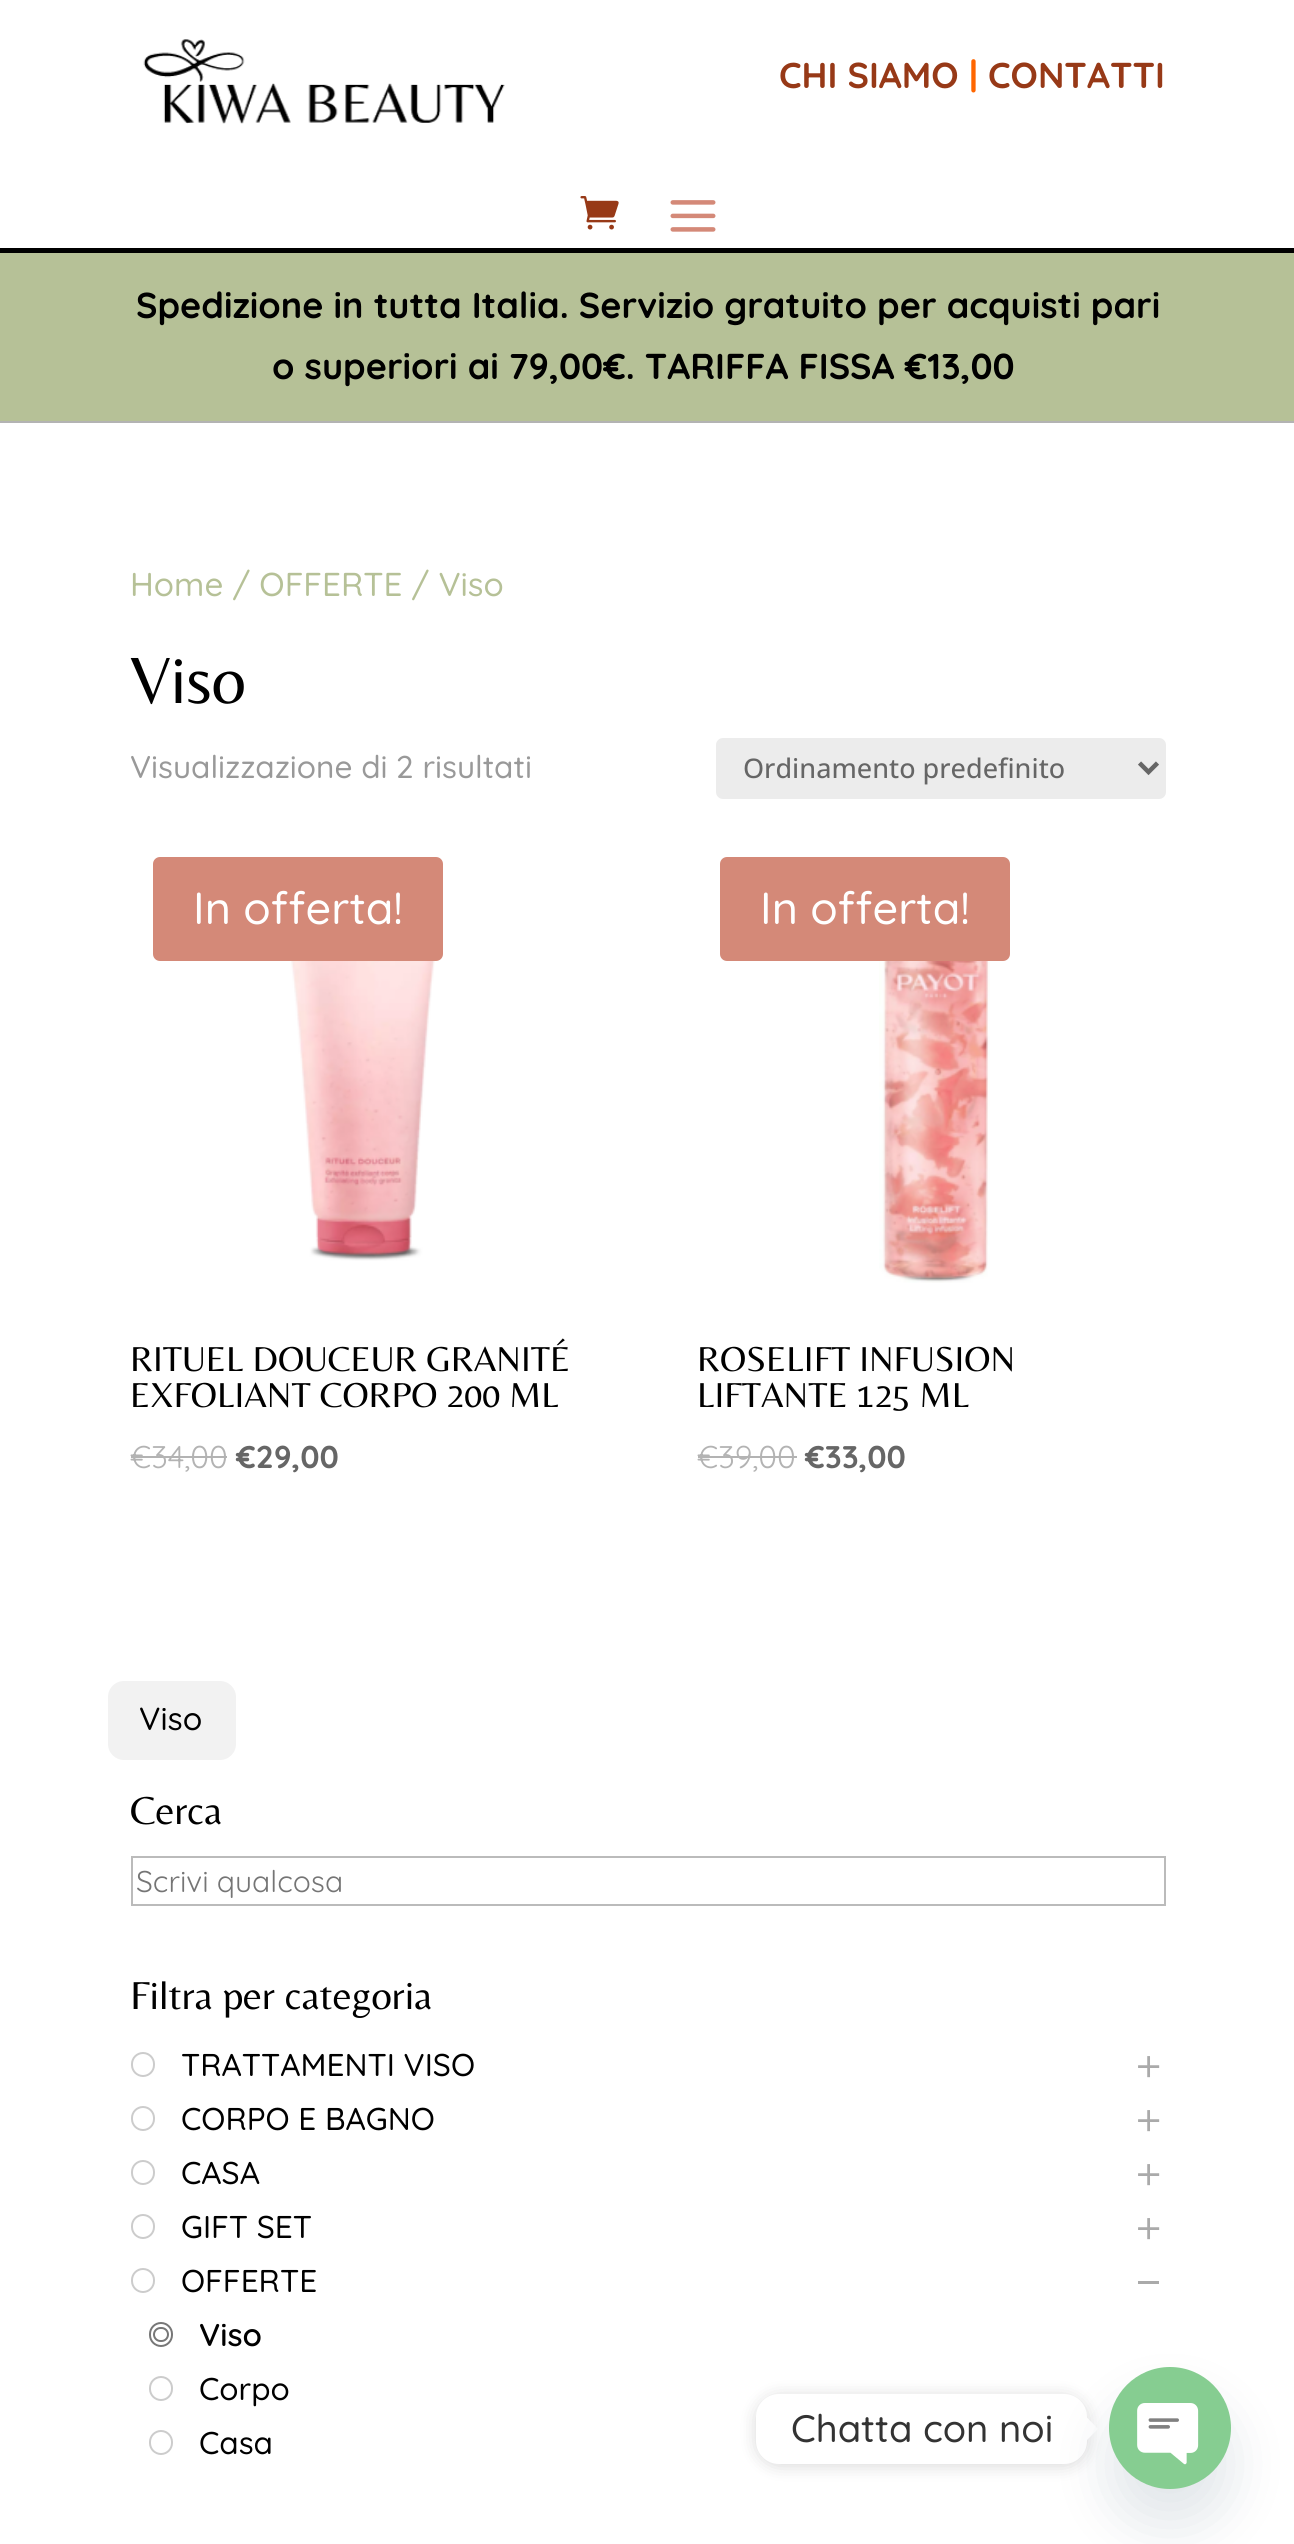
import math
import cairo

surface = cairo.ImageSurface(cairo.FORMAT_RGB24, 1294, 2544)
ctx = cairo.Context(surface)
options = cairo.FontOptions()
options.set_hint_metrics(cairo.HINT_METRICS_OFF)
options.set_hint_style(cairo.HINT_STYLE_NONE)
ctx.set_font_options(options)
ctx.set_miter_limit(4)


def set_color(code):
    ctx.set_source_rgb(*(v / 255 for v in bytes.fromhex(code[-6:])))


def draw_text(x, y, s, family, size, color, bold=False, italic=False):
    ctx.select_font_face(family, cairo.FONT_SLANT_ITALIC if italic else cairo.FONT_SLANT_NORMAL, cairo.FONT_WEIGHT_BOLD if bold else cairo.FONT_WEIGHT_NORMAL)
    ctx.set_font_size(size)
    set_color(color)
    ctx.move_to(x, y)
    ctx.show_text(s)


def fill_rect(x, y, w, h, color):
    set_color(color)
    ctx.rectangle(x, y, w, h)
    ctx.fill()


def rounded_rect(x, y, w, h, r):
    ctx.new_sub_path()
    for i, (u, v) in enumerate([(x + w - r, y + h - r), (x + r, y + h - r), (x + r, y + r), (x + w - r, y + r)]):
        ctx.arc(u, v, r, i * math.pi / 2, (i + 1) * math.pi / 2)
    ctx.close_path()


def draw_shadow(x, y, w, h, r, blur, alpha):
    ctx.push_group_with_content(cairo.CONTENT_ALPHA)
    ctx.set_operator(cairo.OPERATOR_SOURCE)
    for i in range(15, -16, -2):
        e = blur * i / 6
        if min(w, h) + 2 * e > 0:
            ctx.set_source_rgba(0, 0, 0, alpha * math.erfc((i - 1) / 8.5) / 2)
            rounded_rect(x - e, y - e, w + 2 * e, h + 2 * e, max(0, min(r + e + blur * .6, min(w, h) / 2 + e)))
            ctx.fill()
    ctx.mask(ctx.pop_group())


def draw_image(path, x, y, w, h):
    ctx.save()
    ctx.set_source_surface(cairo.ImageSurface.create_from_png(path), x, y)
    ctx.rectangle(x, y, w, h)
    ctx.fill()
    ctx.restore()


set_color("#ffffff")
ctx.paint()
draw_image("assets/img1.png", 143, 39, 362, 85)
draw_text(779, 88, "CHI SIAMO", "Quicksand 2 Light", 36, "#973917")
draw_text(969, 88, "|", "Quicksand 2 Light", 36, "#ff6600")
draw_text(988, 88, "CONTATTI", "Quicksand 2 Light", 36, "#973917")
fill_rect(0, 248, 1294, 5, "#000000")
draw_image("assets/img2.png", 580, 196, 39, 34)
draw_image("assets/img3.png", 670, 200, 46, 32)
fill_rect(0, 253, 1294, 168, "#b6c197")
fill_rect(0, 421, 1294, 2, "#b3b3b3")
draw_text(136, 318, "Spedizione in tutta Italia. Servizio gratuito per acquisti pari", "Quicksand 2 Light", 36, "#000000")
draw_text(272, 379, "o superiori ai 79,00€. TARIFFA FISSA €13,00", "Quicksand 2 Light", 36, "#000000")
draw_text(130, 596, "Home / OFFERTE / Viso", "Quicksand Light", 33.1, "#b6c197")
draw_text(130, 703, "Viso", "Belleza", 68, "#000000")
draw_text(130, 778, "Visualizzazione di 2 risultati", "Quicksand Light", 31.5, "#999999")
set_color("#ececec")
rounded_rect(716, 738, 450, 61, 7)
ctx.fill()
ctx.new_path()
ctx.move_to(1139.5, 763)
ctx.line_to(1148.5, 772)
ctx.line_to(1157.5, 763)
set_color("#666666")
ctx.set_line_width(4.5)
ctx.stroke()
draw_text(743, 778, "Ordinamento predefinito", "Open Sans Medium", 27, "#666666")
draw_image("assets/img4.png", 282, 957, 160, 304)
set_color("#d48978")
rounded_rect(153, 857, 290, 104, 7)
ctx.fill()
draw_text(193, 924, "In offerta!", "Quicksand Light", 45, "#ffffff")
draw_text(130, 1371, "RITUEL DOUCEUR GRANITÉ", "Belleza", 36, "#000000")
draw_text(130, 1407, "EXFOLIANT CORPO 200 ML", "Belleza", 36, "#000000")
draw_text(130, 1468, "€34,00", "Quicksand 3 Light", 31.5, "#b3b3b3")
fill_rect(131, 1456, 96, 2, "#b3b3b3")
draw_text(236, 1468, "€29,00", "Quicksand 2 Light", 31.5, "#666666")
set_color("#d48978")
rounded_rect(720, 857, 290, 104, 7)
ctx.fill()
draw_text(760, 924, "In offerta!", "Quicksand Light", 45, "#ffffff")
draw_image("assets/img5.png", 879, 961, 111, 322)
draw_text(697, 1371, "ROSELIFT INFUSION", "Belleza", 36, "#000000")
draw_text(697, 1407, "LIFTANTE 125 ML", "Belleza", 36, "#000000")
draw_text(697, 1468, "€39,00", "Quicksand 3 Light", 31.5, "#b3b3b3")
fill_rect(698, 1456, 99, 2, "#b3b3b3")
draw_text(805, 1468, "€33,00", "Quicksand 2 Light", 31.5, "#666666")
set_color("#f2f2f2")
rounded_rect(108, 1681, 128, 79, 16)
ctx.fill()
draw_text(139, 1730, "Viso", "Quicksand Light", 32, "#000000")
draw_text(130, 1824, "Cerca", "Belleza", 40.5, "#000000")
ctx.rectangle(132, 1857, 1033, 48)
set_color("#bbbbbb")
ctx.set_line_width(2)
ctx.stroke()
draw_text(136, 1892, "Scrivi qualcosa", "Quicksand 3 Light", 30, "#757575")
draw_text(130, 2009, "Filtra per categoria", "Belleza", 40.5, "#000000")
rounded_rect(132, 2053, 22, 23, 11)
set_color("#cccccc")
ctx.stroke()
draw_text(181, 2076, "TRATTAMENTI VISO", "Quicksand Light", 31.5, "#000000")
draw_image("assets/img6.png", 1138, 2056, 22, 22)
rounded_rect(132, 2107, 22, 23, 11)
set_color("#cccccc")
ctx.stroke()
draw_text(181, 2130, "CORPO E BAGNO", "Quicksand Light", 31.5, "#000000")
draw_image("assets/img6.png", 1138, 2110, 22, 22)
rounded_rect(132, 2161, 22, 23, 11)
set_color("#cccccc")
ctx.stroke()
draw_text(181, 2184, "CASA", "Quicksand Light", 31.5, "#000000")
draw_image("assets/img6.png", 1138, 2164, 22, 22)
rounded_rect(132, 2215, 22, 23, 11)
set_color("#cccccc")
ctx.stroke()
draw_text(181, 2238, "GIFT SET", "Quicksand Light", 31.5, "#000000")
draw_image("assets/img6.png", 1138, 2218, 22, 22)
rounded_rect(132, 2269, 22, 23, 11)
set_color("#cccccc")
ctx.stroke()
draw_text(181, 2292, "OFFERTE", "Quicksand Light", 31.5, "#000000")
fill_rect(1138, 2281, 21, 3, "#aaaaaa")
rounded_rect(150, 2323, 22, 23, 11)
set_color("#777777")
ctx.stroke()
rounded_rect(154, 2328, 14, 13, 6.5)
ctx.stroke()
draw_text(199, 2346, "Viso", "Quicksand SemiBold", 31.5, "#000000")
rounded_rect(150, 2377, 22, 23, 11)
set_color("#cccccc")
ctx.stroke()
draw_text(199, 2400, "Corpo", "Quicksand Light", 31.5, "#000000")
rounded_rect(150, 2431, 22, 23, 11)
set_color("#cccccc")
ctx.stroke()
draw_text(199, 2454, "Casa", "Quicksand Light", 31.5, "#000000")
set_color("#000000")
draw_shadow(756, 2396, 331, 70, 23, 8.5, 0.15)
set_color("#ffffff")
rounded_rect(756, 2394, 331, 70, 23)
ctx.fill()
draw_text(791, 2442, "Chatta con noi", "Quicksand Light", 38.25, "#333333")
set_color("#ffffff")
ctx.new_path()
ctx.move_to(1087, 2440)
ctx.line_to(1087, 2417.5)
ctx.line_to(1098, 2429)
ctx.close_path()
ctx.fill()
set_color("#49687e")
draw_shadow(1109, 2403, 122, 122, 61, 27, 0.16)
draw_image("assets/img7.png", 1109, 2367, 122, 122)
surface.write_to_png("output.png")
